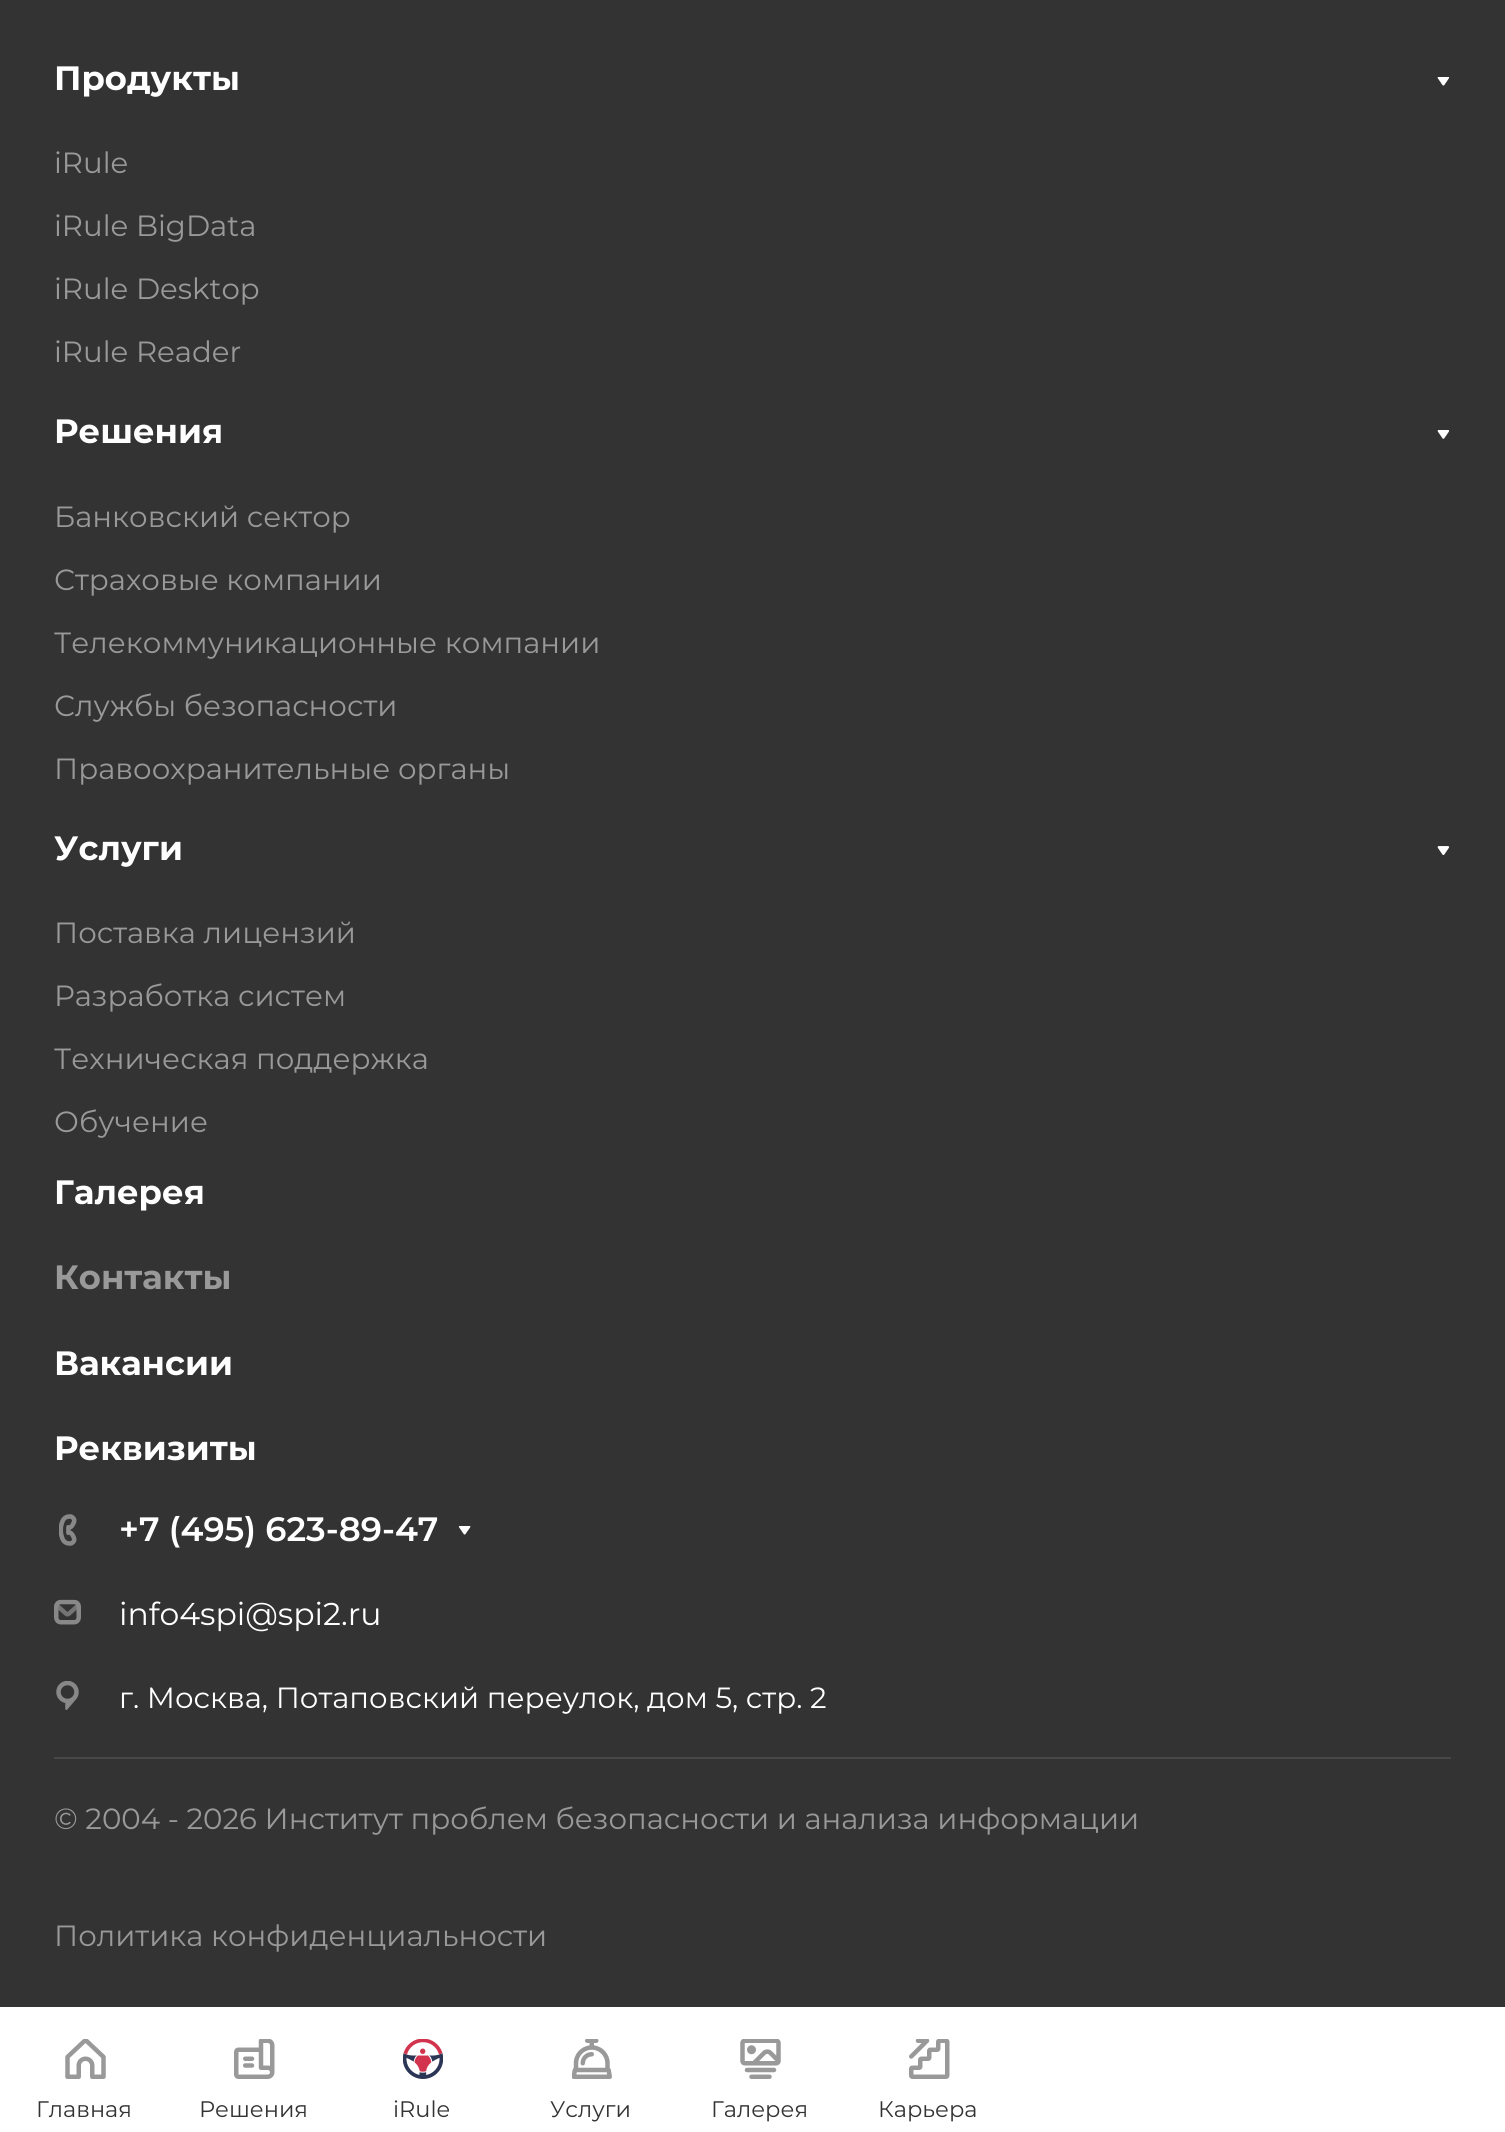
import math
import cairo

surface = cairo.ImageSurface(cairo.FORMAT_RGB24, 1505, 2132)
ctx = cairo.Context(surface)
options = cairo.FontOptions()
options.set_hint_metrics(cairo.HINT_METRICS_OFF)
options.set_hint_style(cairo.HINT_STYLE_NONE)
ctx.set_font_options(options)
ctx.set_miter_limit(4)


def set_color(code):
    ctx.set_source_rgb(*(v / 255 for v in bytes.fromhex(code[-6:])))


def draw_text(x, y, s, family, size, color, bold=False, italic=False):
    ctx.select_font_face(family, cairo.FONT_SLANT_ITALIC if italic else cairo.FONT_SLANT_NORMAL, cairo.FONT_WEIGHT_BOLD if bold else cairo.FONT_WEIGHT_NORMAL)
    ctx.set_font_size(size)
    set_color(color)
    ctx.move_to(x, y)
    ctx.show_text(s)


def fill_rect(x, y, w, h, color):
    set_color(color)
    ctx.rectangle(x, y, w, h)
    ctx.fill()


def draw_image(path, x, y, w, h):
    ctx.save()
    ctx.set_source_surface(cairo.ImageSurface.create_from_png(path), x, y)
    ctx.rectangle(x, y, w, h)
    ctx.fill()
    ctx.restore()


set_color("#333333")
ctx.paint()
draw_text(54, 90, "Продукты", "Montserrat", 33.75, "#ffffff", bold=True)
draw_image("assets/img1.png", 1437, 77, 13, 9)
draw_text(54, 173, "iRule", "Montserrat", 29.25, "#999999")
draw_text(54, 236, "iRule BigData", "Montserrat", 29.25, "#999999")
draw_text(54, 299, "iRule Desktop", "Montserrat", 29.25, "#999999")
draw_text(54, 362, "iRule Reader", "Montserrat", 29.25, "#999999")
draw_text(54, 443, "Решения", "Montserrat", 33.75, "#ffffff", bold=True)
draw_image("assets/img2.png", 1437, 430, 13, 9)
draw_text(54, 527, "Банковский сектор", "Montserrat", 29.25, "#999999")
draw_text(54, 590, "Страховые компании", "Montserrat", 29.25, "#999999")
draw_text(54, 653, "Телекоммуникационные компании", "Montserrat", 29.25, "#999999")
draw_text(54, 716, "Службы безопасности", "Montserrat", 29.25, "#999999")
draw_text(54, 779, "Правоохранительные органы", "Montserrat", 29.25, "#999999")
draw_text(54, 860, "Услуги", "Montserrat", 33.75, "#ffffff", bold=True)
draw_image("assets/img3.png", 1437, 846, 13, 9)
draw_text(54, 943, "Поставка лицензий", "Montserrat", 29.25, "#999999")
draw_text(54, 1006, "Разработка систем", "Montserrat", 29.25, "#999999")
draw_text(54, 1069, "Техническая поддержка", "Montserrat", 29.25, "#999999")
draw_text(54, 1132, "Обучение", "Montserrat", 29.25, "#999999")
draw_text(54, 1204, "Галерея", "Montserrat", 33.75, "#ffffff", bold=True)
draw_text(54, 1289, "Контакты", "Montserrat", 33.75, "#999999", bold=True)
draw_text(54, 1375, "Вакансии", "Montserrat", 33.75, "#ffffff", bold=True)
draw_text(54, 1460, "Реквизиты", "Montserrat", 33.75, "#ffffff", bold=True)
draw_image("assets/img4.png", 59, 1514, 18, 32)
draw_text(119, 1541, "+7 (495) 623-89-47", "Montserrat SemiBold", 33.75, "#ffffff")
draw_image("assets/img5.png", 458, 1526, 13, 9)
draw_image("assets/img6.png", 54, 1599, 27, 26)
draw_text(119, 1625, "info4spi@spi2.ru", "Montserrat", 31.5, "#ffffff")
draw_image("assets/img7.png", 56, 1681, 23, 29)
draw_text(119, 1708, "г. Москва, Потаповский переулок, дом 5, стр. 2", "Montserrat", 29.25, "#ffffff")
fill_rect(54, 1757, 1397, 2, "#474747")
draw_text(54, 1829, "© 2004 - 2026 Институт проблем безопасности и анализа информации", "Montserrat", 29.25, "#999999")
draw_text(54, 1946, "Политика конфиденциальности", "Montserrat", 29.25, "#999999")
fill_rect(0, 2007, 1505, 125, "#ffffff")
draw_image("assets/img8.png", 65, 2039, 41, 40)
draw_text(36, 2117, "Главная", "Montserrat", 22.5, "#333333")
draw_image("assets/img9.png", 234, 2039, 41, 40)
draw_text(199, 2117, "Решения", "Montserrat", 22.5, "#333333")
draw_image("assets/img10.png", 403, 2039, 40, 40)
draw_text(393, 2117, "iRule", "Montserrat", 22.5, "#333333")
draw_image("assets/img11.png", 572, 2039, 40, 40)
draw_text(550, 2117, "Услуги", "Montserrat", 22.5, "#333333")
draw_image("assets/img12.png", 740, 2039, 41, 40)
draw_text(711, 2117, "Галерея", "Montserrat", 22.5, "#333333")
draw_image("assets/img13.png", 909, 2039, 41, 40)
draw_text(878, 2117, "Карьера", "Montserrat", 22.5, "#333333")
surface.write_to_png("output.png")
